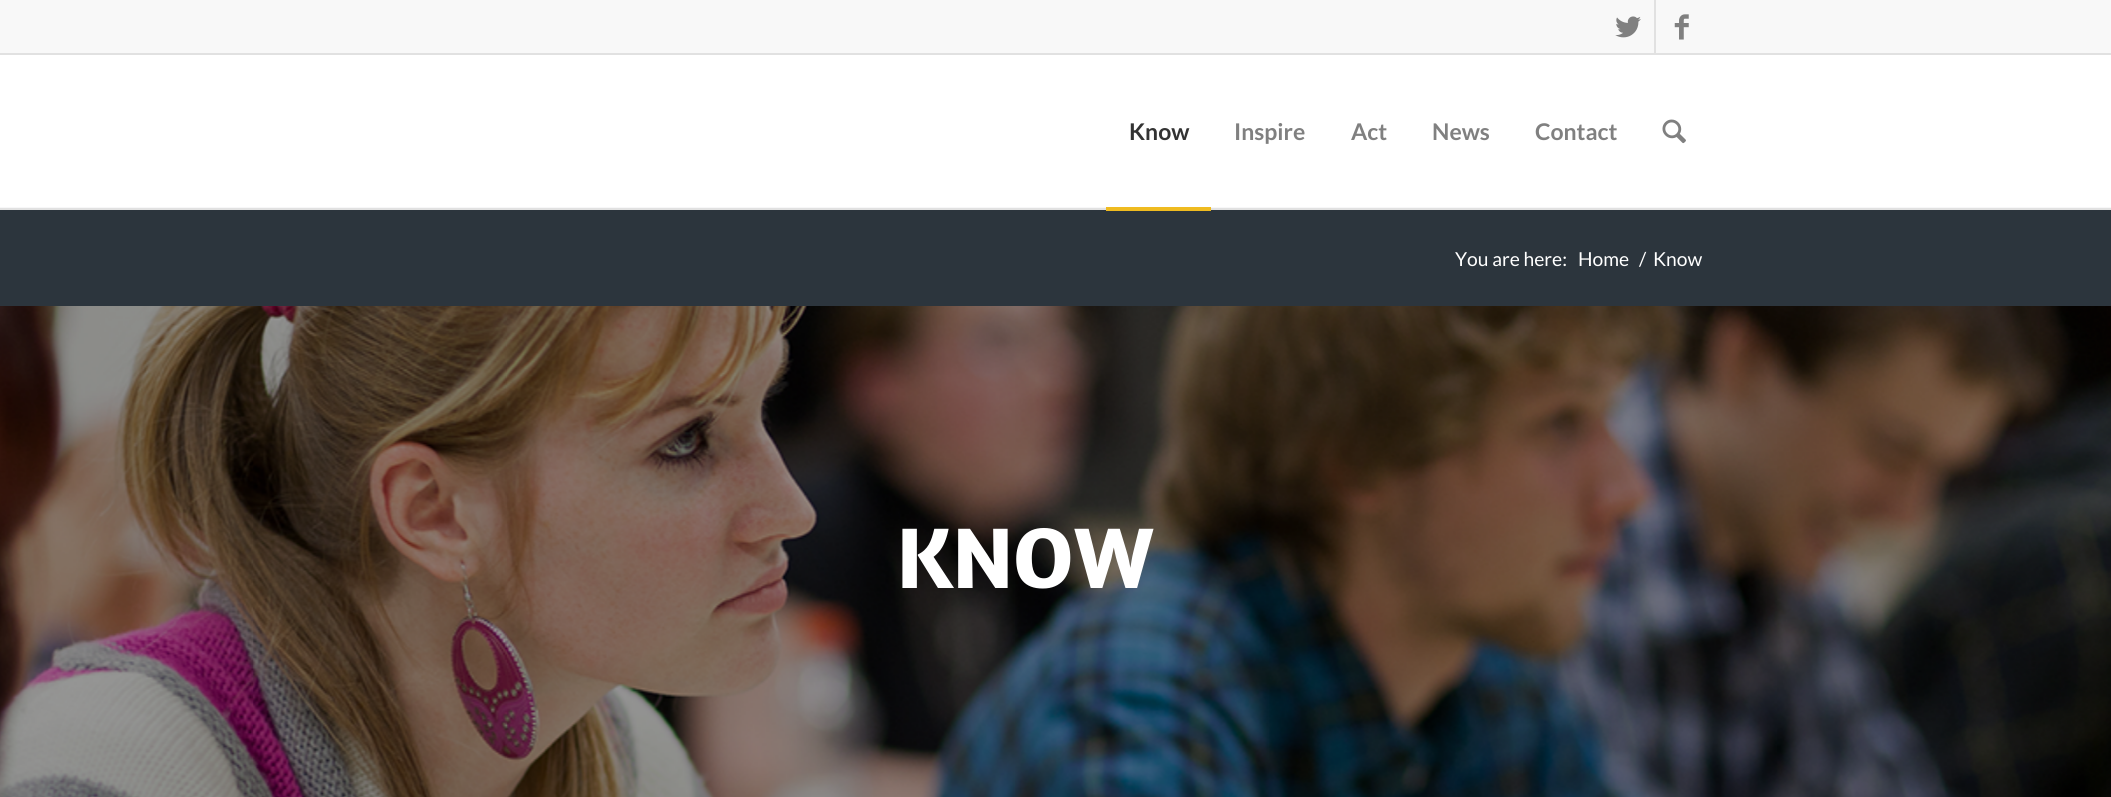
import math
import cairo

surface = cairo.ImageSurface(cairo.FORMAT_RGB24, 2111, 797)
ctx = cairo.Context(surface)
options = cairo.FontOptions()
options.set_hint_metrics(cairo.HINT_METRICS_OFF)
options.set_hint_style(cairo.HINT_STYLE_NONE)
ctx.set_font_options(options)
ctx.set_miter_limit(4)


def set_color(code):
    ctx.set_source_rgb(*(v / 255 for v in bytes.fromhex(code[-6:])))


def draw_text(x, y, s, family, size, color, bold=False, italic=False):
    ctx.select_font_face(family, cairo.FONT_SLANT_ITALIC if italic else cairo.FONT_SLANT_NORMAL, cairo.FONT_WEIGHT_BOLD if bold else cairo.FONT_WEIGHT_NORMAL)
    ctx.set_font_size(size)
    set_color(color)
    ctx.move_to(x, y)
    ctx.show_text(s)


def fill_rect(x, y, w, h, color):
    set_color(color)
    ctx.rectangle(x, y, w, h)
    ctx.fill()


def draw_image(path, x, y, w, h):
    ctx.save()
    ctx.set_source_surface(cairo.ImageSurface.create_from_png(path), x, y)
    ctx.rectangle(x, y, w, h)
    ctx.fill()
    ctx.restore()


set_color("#ffffff")
ctx.paint()
fill_rect(0, 0, 2111, 53, "#f8f8f8")
fill_rect(0, 53, 2111, 2, "#e1e1e1")
fill_rect(1654, 0, 2, 53, "#e1e1e1")
draw_image("assets/img1.png", 1615, 16, 26, 22)
draw_image("assets/img2.png", 1674, 14, 15, 26)
fill_rect(0, 208, 2111, 2, "#e1e1e1")
draw_text(1129, 140, "Know", "Lato", 23, "#333333", bold=True)
fill_rect(0, 210, 2111, 96, "#2c353d")
fill_rect(0, 207, 2111, 1, "#f7f7f8")
fill_rect(1106, 207, 105, 4, "#efbb20")
draw_text(1234, 140, "Inspire", "Lato", 23, "#808080", bold=True)
draw_text(1351, 140, "Act", "Lato", 23, "#808080", bold=True)
draw_text(1432, 140, "News", "Lato", 23, "#808080", bold=True)
draw_text(1535, 140, "Contact", "Lato", 23, "#808080", bold=True)
draw_image("assets/img3.png", 1662, 119, 24, 25)
draw_text(1455, 266, "You are here:", "Lato", 19.25, "#ffffff")
draw_text(1578, 266, "Home", "Lato", 19.25, "#ffffff")
draw_text(1639, 266, "/", "Lato", 19.25, "#ffffff")
draw_text(1653, 266, "Know", "Lato", 19.25, "#ffffff")
draw_image("assets/img4.png", 0, 306, 2111, 491)
draw_text(897, 588, "KNOW", "Amaranth", 87.5, "#ffffff", bold=True)
surface.write_to_png("output.png")
